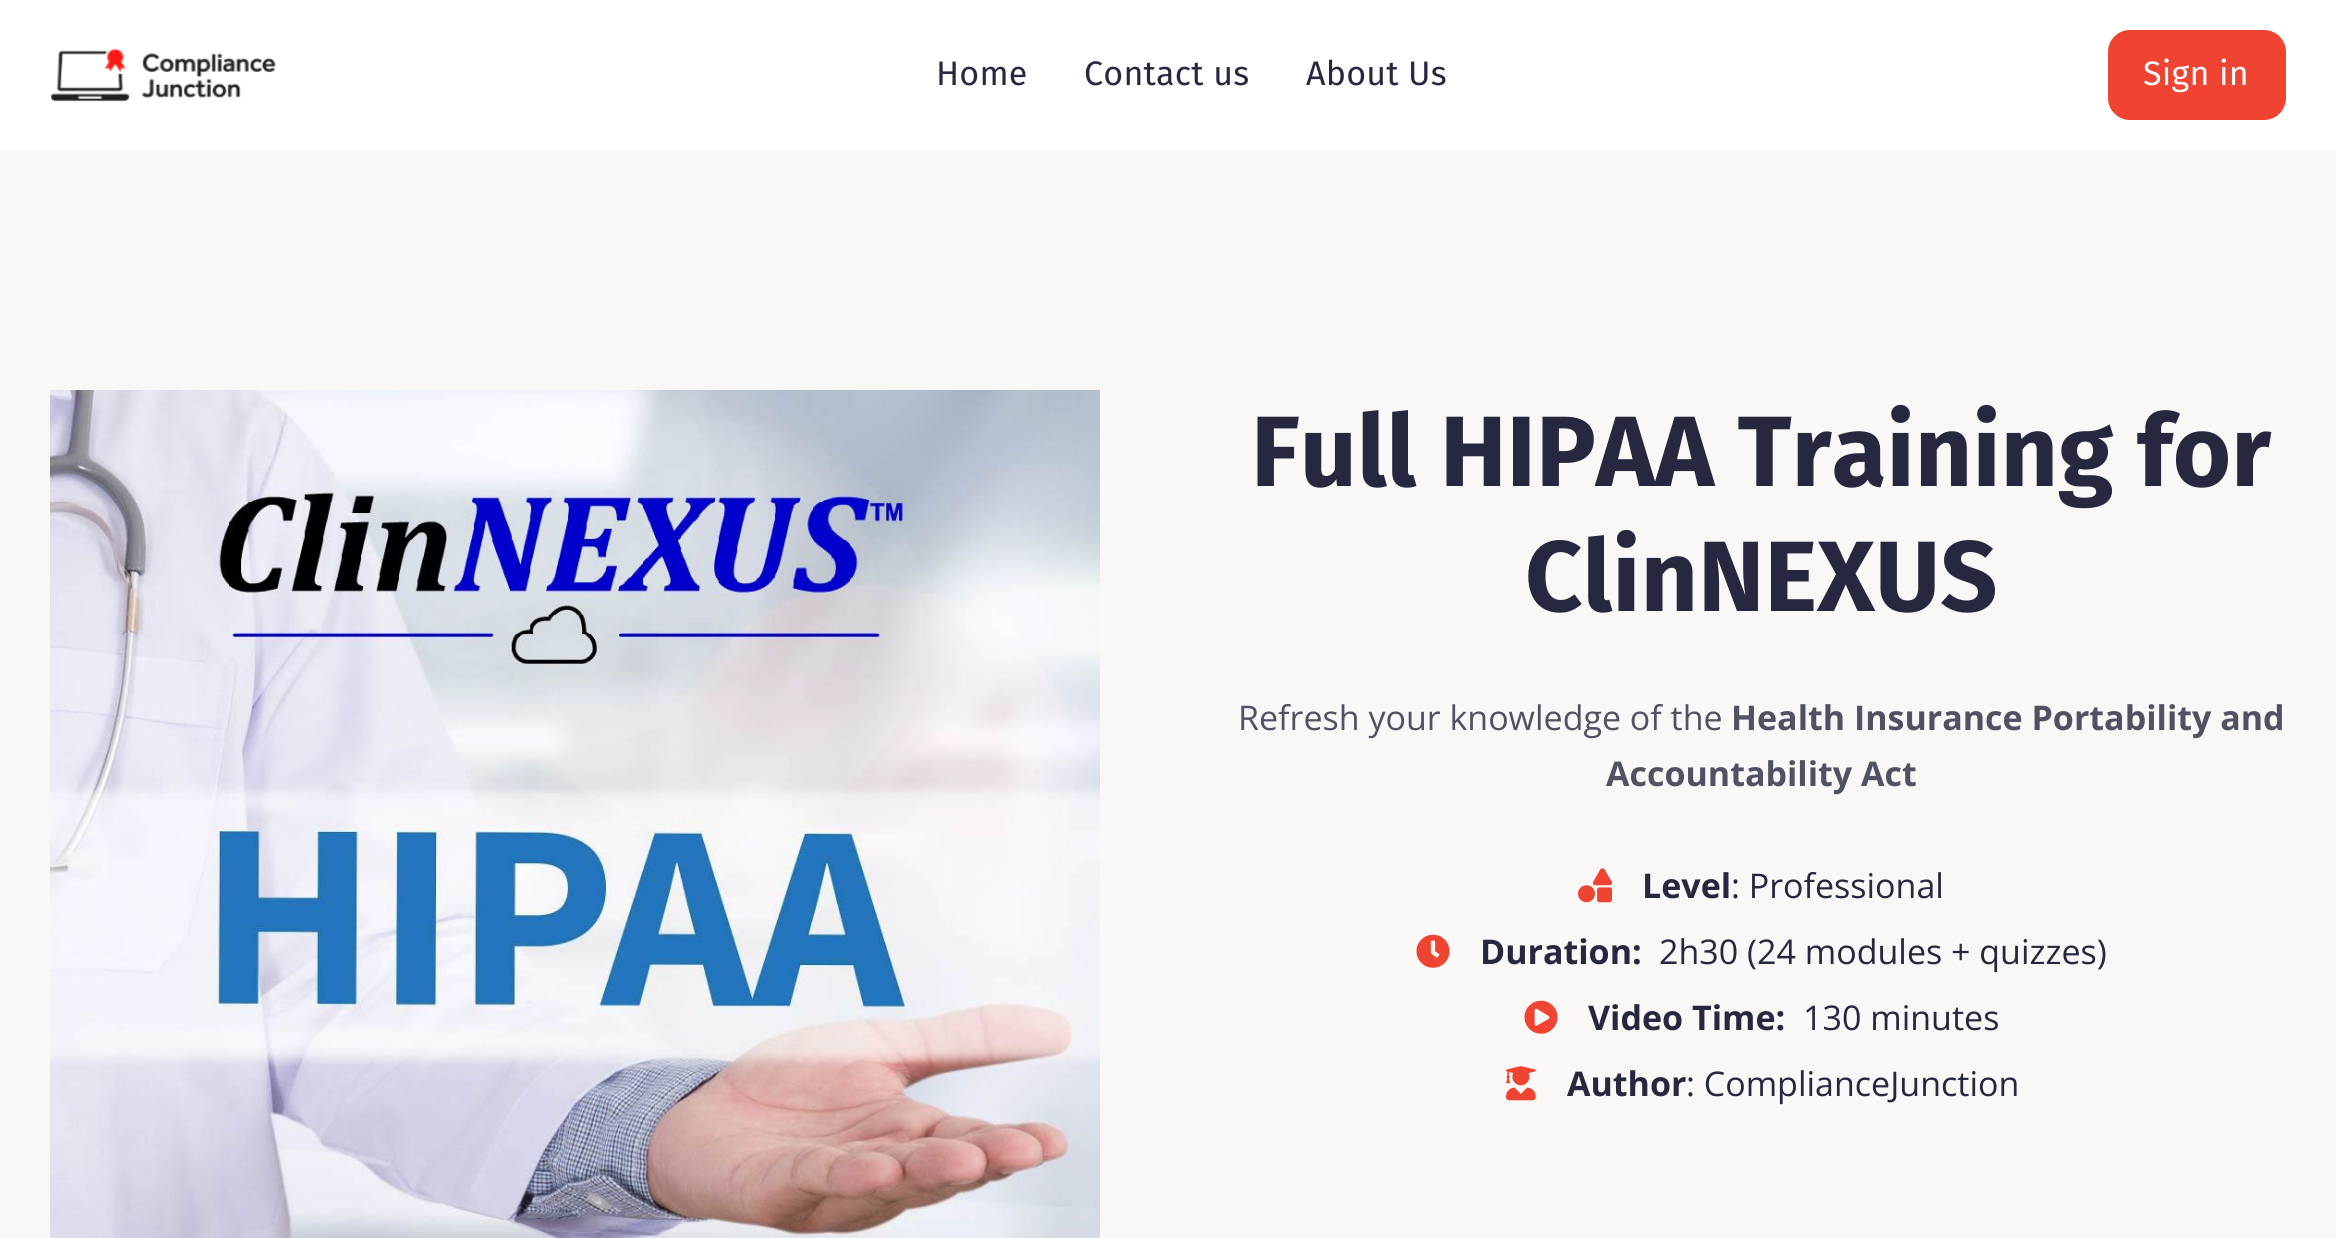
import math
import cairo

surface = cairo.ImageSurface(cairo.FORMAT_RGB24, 2336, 1238)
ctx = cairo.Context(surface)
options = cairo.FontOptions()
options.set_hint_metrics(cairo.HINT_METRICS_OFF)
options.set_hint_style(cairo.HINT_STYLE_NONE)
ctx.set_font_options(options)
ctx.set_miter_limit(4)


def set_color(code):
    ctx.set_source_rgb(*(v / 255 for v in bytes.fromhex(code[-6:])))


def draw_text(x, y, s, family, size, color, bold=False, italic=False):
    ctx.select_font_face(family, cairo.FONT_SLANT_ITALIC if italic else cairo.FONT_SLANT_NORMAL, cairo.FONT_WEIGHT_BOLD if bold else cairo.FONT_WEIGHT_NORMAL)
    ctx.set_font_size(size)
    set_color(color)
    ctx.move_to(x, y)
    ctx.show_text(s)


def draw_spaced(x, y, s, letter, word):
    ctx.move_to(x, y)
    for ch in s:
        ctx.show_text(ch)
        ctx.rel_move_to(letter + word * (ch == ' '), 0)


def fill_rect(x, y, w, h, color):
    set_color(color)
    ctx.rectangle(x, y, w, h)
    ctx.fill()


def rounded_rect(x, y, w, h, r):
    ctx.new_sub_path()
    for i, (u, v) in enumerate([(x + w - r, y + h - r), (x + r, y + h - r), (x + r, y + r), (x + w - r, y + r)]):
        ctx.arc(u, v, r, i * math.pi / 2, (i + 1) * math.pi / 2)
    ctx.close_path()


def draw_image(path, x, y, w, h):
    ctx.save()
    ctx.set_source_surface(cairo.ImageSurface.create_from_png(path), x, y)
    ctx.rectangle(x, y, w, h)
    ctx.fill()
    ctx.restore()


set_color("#ffffff")
ctx.paint()
draw_image("assets/img1.png", 51, 48, 225, 54)
ctx.select_font_face("Fira Sans")
ctx.set_font_size(34)
set_color("#272740")
draw_spaced(936, 85, "Home", 0.25, 0)
draw_spaced(1084, 85, "Contact us", 0.25, 0)
draw_spaced(1306, 85, "About Us", 0.25, 0)
set_color("#ef4432")
rounded_rect(2108, 30, 178, 90, 22)
ctx.fill()
set_color("#ffffff")
draw_spaced(2143, 85, "Sign in", 0.25, 0)
fill_rect(0, 150, 2336, 1088, "#faf8f6")
draw_image("assets/img2.png", 50, 390, 1050, 848)
draw_text(1251, 486, "Full HIPAA Training for", "Fira Sans", 100, "#272740", bold=True)
draw_text(1525, 611, "ClinNEXUS", "Fira Sans", 100, "#272740", bold=True)
draw_text(1238, 730, "Refresh your knowledge of the", "Open Sans", 34, "#515164")
draw_text(1731, 730, "Health Insurance Portability and", "Open Sans", 34, "#515164", bold=True)
draw_text(1606, 786, "Accountability Act", "Open Sans", 34, "#515164", bold=True)
draw_image("assets/img3.png", 1578, 868, 34, 35)
draw_text(1642, 898, "Level", "Open Sans", 34, "#272740", bold=True)
draw_text(1731, 898, ": Professional", "Open Sans", 34, "#272740")
draw_image("assets/img4.png", 1416, 934, 34, 34)
draw_text(1480, 964, "Duration:", "Open Sans", 34, "#272740", bold=True)
draw_text(1659, 964, "2h30 (24 modules + quizzes)", "Open Sans", 34, "#272740")
draw_image("assets/img5.png", 1524, 1000, 34, 34)
draw_text(1588, 1030, "Video Time:", "Open Sans", 34, "#272740", bold=True)
draw_text(1803, 1030, "130 minutes", "Open Sans", 34, "#272740")
draw_image("assets/img6.png", 1506, 1066, 30, 35)
draw_text(1567, 1096, "Author", "Open Sans", 34, "#272740", bold=True)
draw_text(1686, 1096, ": ComplianceJunction", "Open Sans", 34, "#272740")
surface.write_to_png("output.png")
